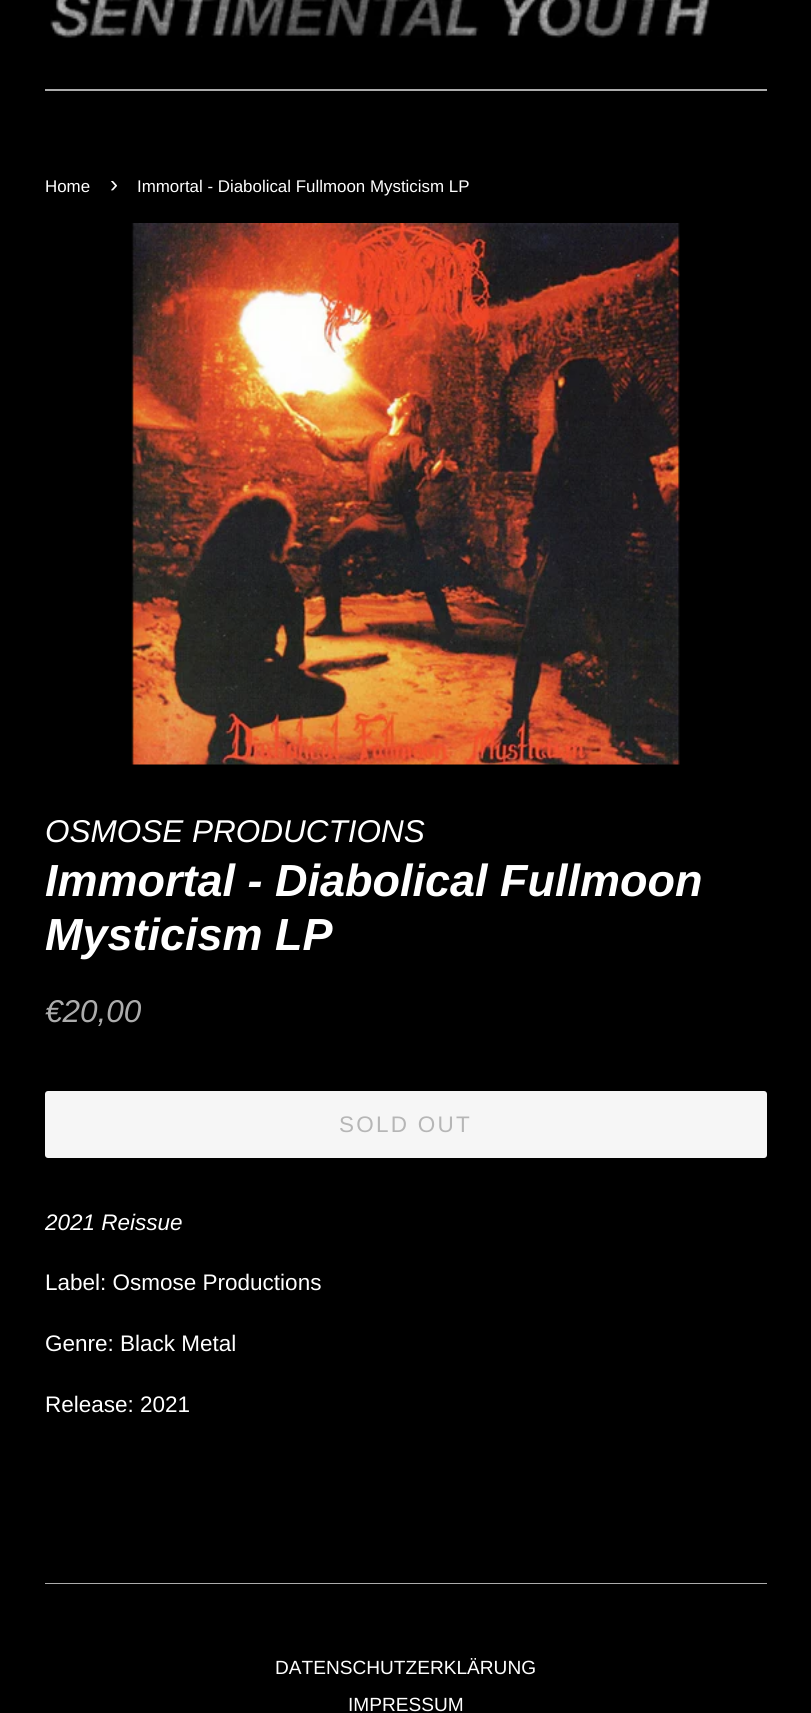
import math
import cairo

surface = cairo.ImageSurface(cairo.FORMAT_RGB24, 811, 1713)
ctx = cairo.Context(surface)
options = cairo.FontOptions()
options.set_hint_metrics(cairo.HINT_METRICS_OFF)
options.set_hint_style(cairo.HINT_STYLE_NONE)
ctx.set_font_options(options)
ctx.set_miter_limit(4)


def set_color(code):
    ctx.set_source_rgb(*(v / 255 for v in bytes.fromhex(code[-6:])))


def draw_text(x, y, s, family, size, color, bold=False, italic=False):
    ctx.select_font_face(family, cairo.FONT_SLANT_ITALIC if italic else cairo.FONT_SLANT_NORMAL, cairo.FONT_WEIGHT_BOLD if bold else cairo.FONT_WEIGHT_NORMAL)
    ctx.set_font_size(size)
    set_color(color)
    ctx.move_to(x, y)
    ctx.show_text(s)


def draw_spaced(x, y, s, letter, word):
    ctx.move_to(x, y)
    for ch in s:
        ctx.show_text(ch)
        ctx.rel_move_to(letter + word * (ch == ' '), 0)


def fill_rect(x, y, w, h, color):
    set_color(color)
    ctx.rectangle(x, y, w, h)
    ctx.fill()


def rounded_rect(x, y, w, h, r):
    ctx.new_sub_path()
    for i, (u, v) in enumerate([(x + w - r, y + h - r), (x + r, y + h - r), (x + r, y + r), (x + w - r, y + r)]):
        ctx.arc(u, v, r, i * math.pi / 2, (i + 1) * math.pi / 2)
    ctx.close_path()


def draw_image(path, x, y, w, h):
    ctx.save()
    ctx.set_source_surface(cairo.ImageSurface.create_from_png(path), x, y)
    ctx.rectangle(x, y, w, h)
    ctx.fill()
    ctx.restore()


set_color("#000000")
ctx.paint()
fill_rect(45, 89, 722, 2, "#acacac")
draw_image("assets/img1.png", 50, 0, 660, 38)
draw_text(45, 192, "Home", "Liberation Sans", 16.9, "#ffffff")
draw_text(110, 192, "›", "Liberation Sans", 24, "#ffffff")
draw_text(137, 192, "Immortal - Diabolical Fullmoon Mysticism LP", "Liberation Sans", 16.9, "#ffffff")
draw_image("assets/img2.png", 131, 223, 549, 542)
draw_text(45, 842, "OSMOSE PRODUCTIONS", "Liberation Sans", 31.5, "#ffffff", italic=True)
draw_text(45, 896, "Immortal - Diabolical Fullmoon", "Liberation Sans", 45, "#ffffff", bold=True, italic=True)
draw_text(45, 950, "Mysticism LP", "Liberation Sans", 45, "#ffffff", bold=True, italic=True)
draw_text(45, 1022, "€20,00", "Liberation Sans", 31.5, "#acacac", italic=True)
set_color("#f6f6f6")
rounded_rect(46, 1092, 720, 65, 2)
ctx.fill_preserve()
ctx.stroke()
ctx.select_font_face("Liberation Sans")
ctx.set_font_size(22.5)
set_color("#b6b6b6")
draw_spaced(339, 1132, "SOLD OUT", 2.25, 0)
draw_text(45, 1230, "2021 Reissue", "Liberation Sans", 22.5, "#ffffff", italic=True)
draw_text(45, 1290, "Label: Osmose Productions", "Liberation Sans", 22.5, "#ffffff")
draw_text(45, 1351, "Genre: Black Metal", "Liberation Sans", 22.5, "#ffffff")
draw_text(45, 1412, "Release: 2021", "Liberation Sans", 22.5, "#ffffff")
fill_rect(45, 1583, 722, 1, "#acacac")
draw_text(275, 1674, "DATENSCHUTZERKLÄRUNG", "Liberation Sans", 19.1, "#ffffff")
draw_text(348, 1711, "IMPRESSUM", "Liberation Sans", 19.1, "#ffffff")
surface.write_to_png("output.png")
